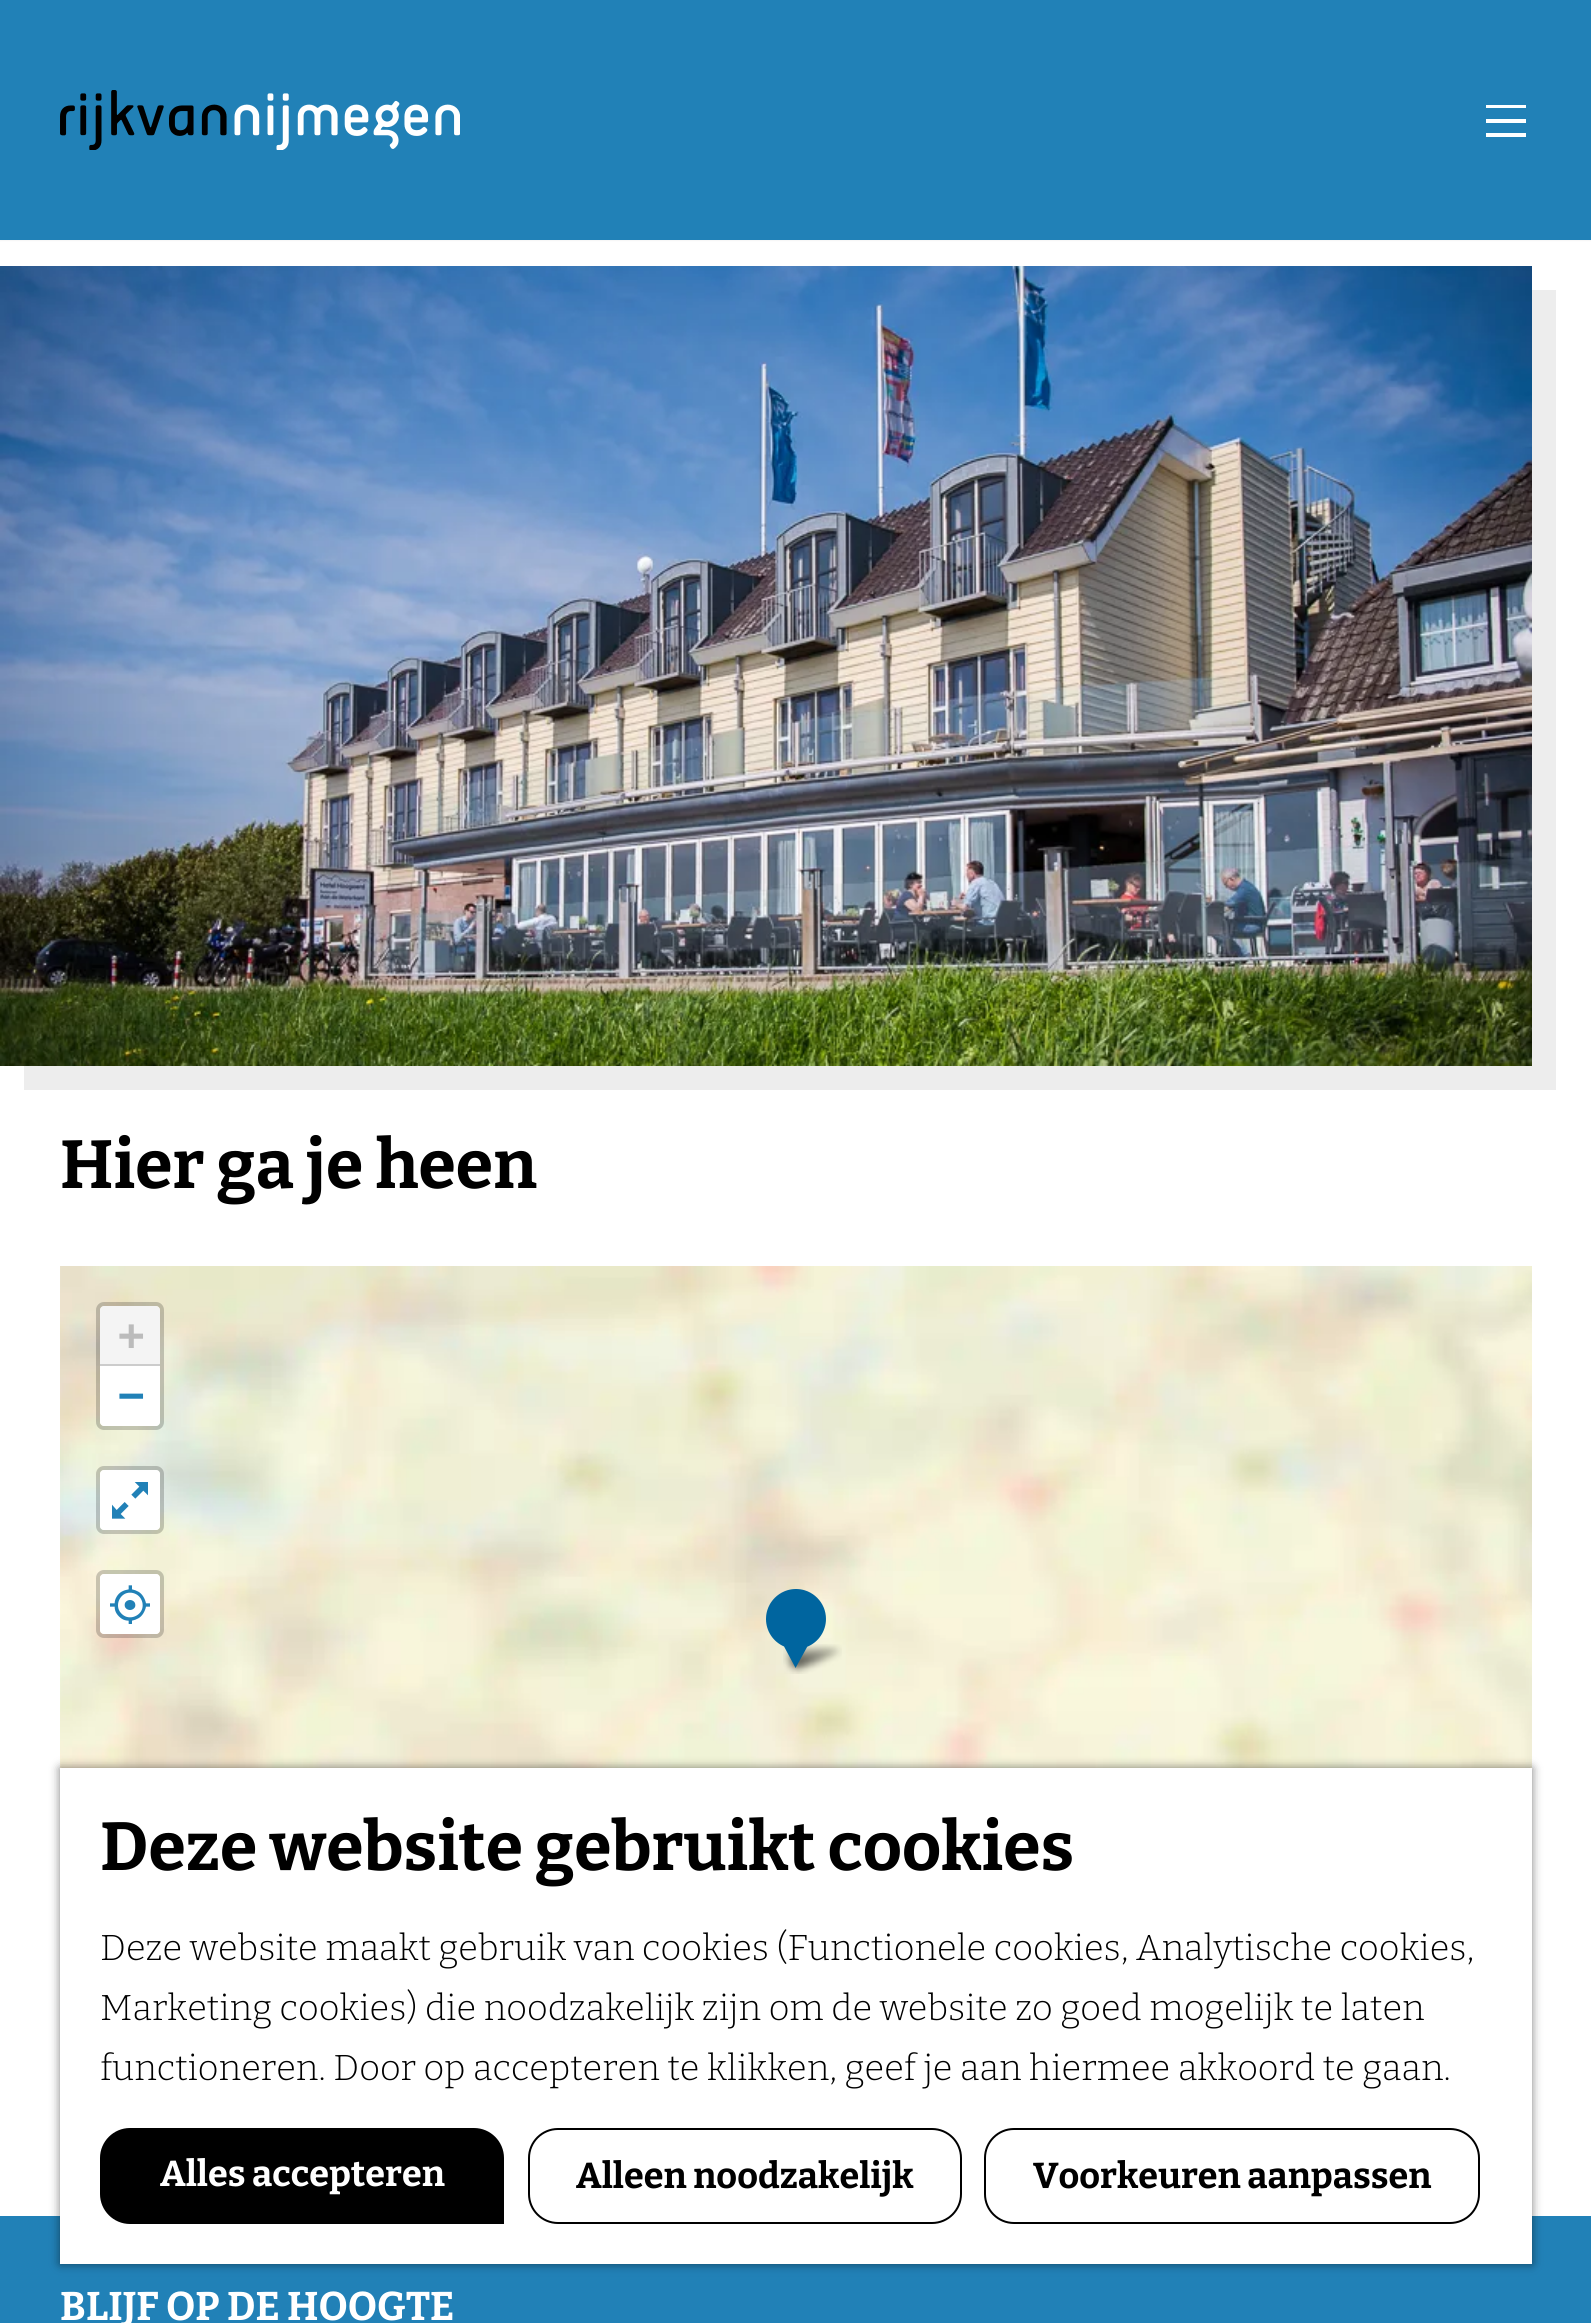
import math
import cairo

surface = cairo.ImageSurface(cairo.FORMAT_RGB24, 1591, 2323)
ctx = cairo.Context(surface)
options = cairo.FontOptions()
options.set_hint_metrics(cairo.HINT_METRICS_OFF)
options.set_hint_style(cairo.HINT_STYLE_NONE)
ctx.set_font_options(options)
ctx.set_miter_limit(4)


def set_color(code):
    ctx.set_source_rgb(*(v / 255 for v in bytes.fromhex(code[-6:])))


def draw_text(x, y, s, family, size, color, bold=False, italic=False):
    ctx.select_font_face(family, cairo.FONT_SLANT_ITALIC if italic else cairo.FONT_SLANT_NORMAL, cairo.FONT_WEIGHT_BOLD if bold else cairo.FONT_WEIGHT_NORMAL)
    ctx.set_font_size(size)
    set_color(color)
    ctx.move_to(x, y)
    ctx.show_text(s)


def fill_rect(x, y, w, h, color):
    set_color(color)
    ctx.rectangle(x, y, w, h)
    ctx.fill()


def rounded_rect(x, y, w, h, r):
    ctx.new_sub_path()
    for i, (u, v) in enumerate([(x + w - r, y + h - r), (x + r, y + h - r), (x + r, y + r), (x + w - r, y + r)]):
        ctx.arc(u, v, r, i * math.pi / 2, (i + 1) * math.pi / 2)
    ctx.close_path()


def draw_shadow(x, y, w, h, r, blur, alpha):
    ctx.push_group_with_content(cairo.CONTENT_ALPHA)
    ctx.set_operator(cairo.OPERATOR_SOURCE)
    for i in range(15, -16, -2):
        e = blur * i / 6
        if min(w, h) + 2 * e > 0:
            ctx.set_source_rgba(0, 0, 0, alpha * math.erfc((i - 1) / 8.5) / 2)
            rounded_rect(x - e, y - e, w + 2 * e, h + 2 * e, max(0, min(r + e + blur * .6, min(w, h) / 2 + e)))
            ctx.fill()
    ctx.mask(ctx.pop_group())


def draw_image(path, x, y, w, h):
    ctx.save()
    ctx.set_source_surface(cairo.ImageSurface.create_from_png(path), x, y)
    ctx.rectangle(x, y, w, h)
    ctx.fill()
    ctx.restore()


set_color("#ffffff")
ctx.paint()
set_color("#000000")
draw_shadow(0, 0, 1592, 240, 0, 1, 0.1)
fill_rect(0, 0, 1591, 240, "#2181b7")
draw_image("assets/img1.png", 60, 90, 400, 60)
set_color("#ffffff")
ctx.new_path()
ctx.move_to(1486, 105)
ctx.line_to(1526, 105)
ctx.line_to(1526, 108)
ctx.line_to(1486, 108)
ctx.close_path()
ctx.move_to(1486, 119)
ctx.line_to(1526, 119)
ctx.line_to(1526, 123)
ctx.line_to(1486, 123)
ctx.close_path()
ctx.move_to(1486, 133)
ctx.line_to(1526, 133)
ctx.line_to(1526, 137)
ctx.line_to(1486, 137)
ctx.close_path()
ctx.fill()
set_color("#ededed")
ctx.new_path()
ctx.move_to(24, 1066)
ctx.line_to(24, 1090)
ctx.line_to(1556, 1090)
ctx.line_to(1556, 290)
ctx.line_to(1532, 290)
ctx.line_to(1532, 1066)
ctx.close_path()
ctx.fill()
draw_image("assets/img2.png", 0, 266, 1532, 800)
draw_text(60, 1188, "Hier ga je heen", "Bitter Thin", 68, "#000000")
draw_image("assets/img3.png", 60, 1266, 1472, 502)
rounded_rect(98, 1304, 64, 124, 6)
ctx.set_source_rgba(0, 0, 0, 0.2)
ctx.set_line_width(4)
ctx.stroke()
set_color("#f4f4f4")
ctx.new_path()
ctx.move_to(104, 1306)
ctx.line_to(156, 1306)
ctx.curve_to(158, 1306, 160, 1308, 160, 1310)
ctx.line_to(160, 1366)
ctx.line_to(100, 1366)
ctx.line_to(100, 1310)
ctx.curve_to(100, 1308, 102, 1306, 104, 1306)
ctx.close_path()
ctx.fill()
fill_rect(100, 1364, 60, 2, "#cccccc")
draw_text(118, 1350, "+", "DejaVu Sans Mono", 44, "#bbbbbb", bold=True)
set_color("#ffffff")
ctx.new_path()
ctx.move_to(100, 1366)
ctx.line_to(160, 1366)
ctx.line_to(160, 1422)
ctx.curve_to(160, 1424, 158, 1426, 156, 1426)
ctx.line_to(104, 1426)
ctx.curve_to(102, 1426, 100, 1424, 100, 1422)
ctx.close_path()
ctx.fill()
draw_text(118, 1410, "−", "DejaVu Sans Mono", 44, "#2181b7", bold=True)
rounded_rect(98, 1468, 64, 64, 6)
ctx.set_source_rgba(0, 0, 0, 0.2)
ctx.stroke()
set_color("#ffffff")
rounded_rect(100, 1470, 60, 60, 4)
ctx.fill()
draw_image("assets/img4.png", 112, 1482, 36, 37)
rounded_rect(98, 1572, 64, 64, 6)
ctx.set_source_rgba(0, 0, 0, 0.2)
ctx.stroke()
set_color("#ffffff")
rounded_rect(100, 1574, 60, 60, 4)
ctx.fill()
draw_image("assets/img5.png", 110, 1585, 40, 39)
draw_image("assets/img7.png", 783, 1644, 59, 30)
draw_image("assets/img6.png", 766, 1589, 60, 79)
fill_rect(0, 2216, 1591, 107, "#2181b7")
set_color("#000000")
draw_shadow(60, 1768, 1472, 496, 0, 5, 0.5)
fill_rect(60, 1768, 1472, 496, "#ffffff")
draw_text(100, 1870, "Deze website gebruikt cookies", "Bitter Thin", 68, "#000000")
draw_text(100, 1960, "Deze website maakt gebruik van cookies (Functionele cookies, Analytische cookies,", "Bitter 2 Thin", 36, "#000000")
draw_text(100, 2020, "Marketing cookies) die noodzakelijk zijn om de website zo goed mogelijk te laten", "Bitter 2 Thin", 36, "#000000")
draw_text(100, 2080, "functioneren. Door op accepteren te klikken, geef je aan hiermee akkoord te gaan.", "Bitter 2 Thin", 36, "#000000")
ctx.new_path()
ctx.move_to(130, 2128)
ctx.line_to(474, 2128)
ctx.curve_to(490.5, 2128, 504, 2141.5, 504, 2158)
ctx.line_to(504, 2224)
ctx.line_to(130, 2224)
ctx.curve_to(113.5, 2224, 100, 2210.5, 100, 2194)
ctx.line_to(100, 2158)
ctx.curve_to(100, 2141.5, 113.5, 2128, 130, 2128)
ctx.close_path()
ctx.fill()
draw_text(160, 2186, "Alles accepteren", "Bitter Thin", 36, "#ffffff")
rounded_rect(529, 2129, 432, 94, 29)
set_color("#000000")
ctx.set_line_width(2)
ctx.stroke()
draw_text(576, 2188, "Alleen noodzakelijk", "Bitter Thin", 36, "#000000")
rounded_rect(985, 2129, 494, 94, 29)
ctx.stroke()
draw_text(1033, 2188, "Voorkeuren aanpassen", "Bitter Thin", 36, "#000000")
draw_text(60, 2320, "BLIJF OP DE HOOGTE", "Bitter Thin", 40, "#ffffff")
surface.write_to_png("output.png")
